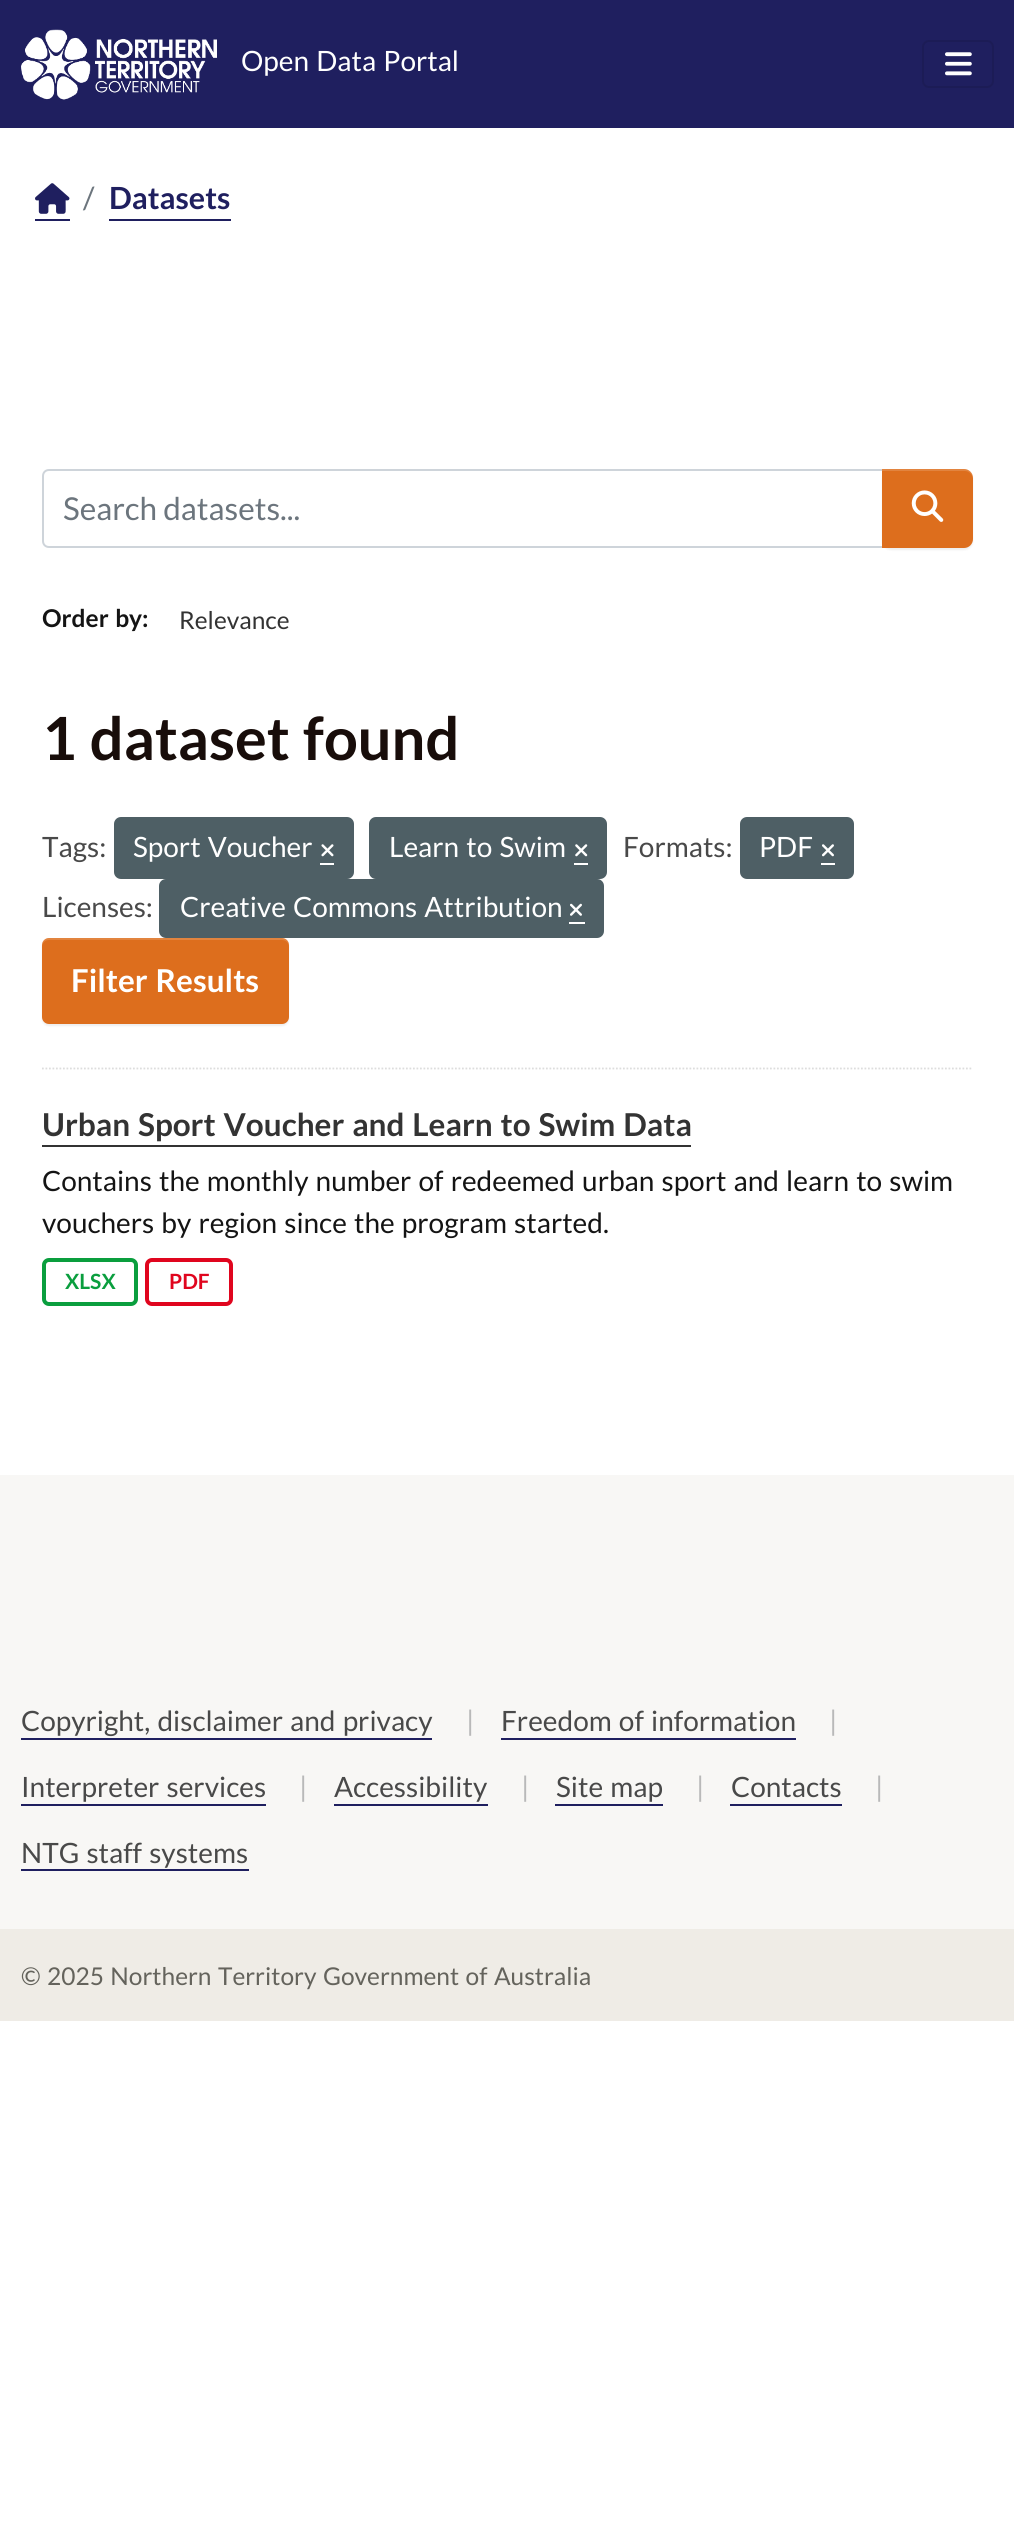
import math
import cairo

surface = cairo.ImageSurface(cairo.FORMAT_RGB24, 1014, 2542)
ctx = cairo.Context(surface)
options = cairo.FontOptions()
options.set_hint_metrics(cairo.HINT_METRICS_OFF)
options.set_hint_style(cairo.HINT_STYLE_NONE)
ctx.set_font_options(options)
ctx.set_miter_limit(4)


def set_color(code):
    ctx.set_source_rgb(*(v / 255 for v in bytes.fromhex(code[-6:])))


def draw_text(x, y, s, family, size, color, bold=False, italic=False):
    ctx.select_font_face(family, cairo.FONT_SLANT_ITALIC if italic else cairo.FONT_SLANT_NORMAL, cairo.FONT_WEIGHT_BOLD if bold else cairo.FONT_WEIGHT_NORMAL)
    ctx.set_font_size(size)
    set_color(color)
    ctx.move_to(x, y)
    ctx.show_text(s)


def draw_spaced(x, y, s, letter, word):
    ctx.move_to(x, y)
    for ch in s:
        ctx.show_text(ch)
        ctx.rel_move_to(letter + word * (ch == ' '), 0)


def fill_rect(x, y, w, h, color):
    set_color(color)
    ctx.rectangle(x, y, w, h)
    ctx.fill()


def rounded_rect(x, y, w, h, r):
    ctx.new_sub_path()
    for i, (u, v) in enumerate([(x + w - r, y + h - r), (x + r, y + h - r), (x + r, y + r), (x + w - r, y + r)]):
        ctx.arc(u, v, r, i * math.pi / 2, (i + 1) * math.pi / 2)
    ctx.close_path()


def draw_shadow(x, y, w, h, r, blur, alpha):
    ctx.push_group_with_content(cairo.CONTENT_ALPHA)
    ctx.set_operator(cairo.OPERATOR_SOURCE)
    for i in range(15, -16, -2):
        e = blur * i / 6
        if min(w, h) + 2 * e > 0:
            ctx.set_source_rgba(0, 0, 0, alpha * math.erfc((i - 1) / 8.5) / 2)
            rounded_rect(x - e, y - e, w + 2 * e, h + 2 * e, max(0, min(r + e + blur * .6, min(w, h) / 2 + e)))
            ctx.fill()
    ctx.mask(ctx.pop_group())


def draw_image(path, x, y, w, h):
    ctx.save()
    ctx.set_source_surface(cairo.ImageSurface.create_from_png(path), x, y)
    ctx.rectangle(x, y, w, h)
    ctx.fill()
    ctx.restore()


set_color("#ffffff")
ctx.paint()
fill_rect(0, 0, 1014, 128, "#1f1f5f")
draw_image("assets/img1.png", 21, 29, 196, 71)
ctx.select_font_face("Lato")
ctx.set_font_size(28)
set_color("#ffffff")
draw_spaced(241, 71, "Open Data Portal", 0, 1.75)
rounded_rect(923, 41, 70, 46, 6)
set_color("#1c1c56")
ctx.stroke()
draw_image("assets/img2.png", 945, 52, 27, 24)
fill_rect(35, 219, 35, 2, "#1f1f5f")
draw_image("assets/img3.png", 35, 183, 35, 31)
draw_text(83, 209, "/", "Lato", 30.5, "#6c757d")
draw_text(109, 209, "Datasets", "Lato", 30.5, "#1f1f5f", bold=True)
fill_rect(109, 219, 122, 2, "#1f1f5f")
ctx.new_path()
ctx.move_to(42, 1068.5)
ctx.line_to(973, 1068.5)
set_color("#dddddd")
ctx.set_line_width(1.8)
ctx.set_dash([1.75, 1.75])
ctx.stroke()
ctx.new_path()
ctx.move_to(49, 470)
ctx.line_to(883, 470)
ctx.line_to(883, 547)
ctx.line_to(49, 547)
ctx.curve_to(45.5, 547, 43, 544.5, 43, 541)
ctx.line_to(43, 476)
ctx.curve_to(43, 472.5, 45.5, 470, 49, 470)
ctx.close_path()
set_color("#ced4da")
ctx.set_line_width(2)
ctx.set_dash([])
ctx.stroke()
draw_text(63, 520, "Search datasets...", "Lato", 31.5, "#6c757d")
set_color("#000000")
draw_shadow(882, 471, 91, 79, 9, 1, 0.07)
set_color("#dd6e1d")
ctx.new_path()
ctx.move_to(882, 469)
ctx.line_to(964, 469)
ctx.curve_to(969, 469, 973, 473, 973, 478)
ctx.line_to(973, 539)
ctx.curve_to(973, 544, 969, 548, 964, 548)
ctx.line_to(882, 548)
ctx.close_path()
ctx.fill()
ctx.set_source_rgba(1, 1, 1, 0.15)
ctx.new_path()
ctx.move_to(882, 471)
ctx.line_to(965, 471)
ctx.curve_to(969, 471, 973, 475, 973, 479)
ctx.line_to(973, 478)
ctx.curve_to(973, 473, 969, 469, 964, 469)
ctx.line_to(882, 469)
ctx.close_path()
ctx.fill()
draw_image("assets/img4.png", 911, 490, 33, 32)
ctx.select_font_face("Lato", cairo.FONT_SLANT_NORMAL, cairo.FONT_WEIGHT_BOLD)
ctx.set_font_size(24.5)
set_color("#141414")
draw_spaced(42, 627, "Order by", 0, 1.75)
draw_text(142, 627, ":", "Lato", 24.5, "#141414", bold=True)
draw_text(179, 629, "Relevance", "Lato", 24.5, "#333333")
ctx.select_font_face("Lato", cairo.FONT_SLANT_NORMAL, cairo.FONT_WEIGHT_BOLD)
ctx.set_font_size(59.5)
set_color("#180d0a")
draw_spaced(42, 760, "1 dataset found", 0, 1.75)
draw_text(42, 857, "Tags:", "Lato", 28, "#494949")
set_color("#4e5f65")
rounded_rect(114, 817, 240, 62, 7)
ctx.fill()
set_color("#ffffff")
draw_spaced(133, 857, "Sport Voucher", 0, 1.75)
fill_rect(320, 863, 14, 2, "#ffffff")
draw_image("assets/img5.png", 321, 844, 13, 13)
set_color("#4e5f65")
rounded_rect(369, 817, 238, 62, 7)
ctx.fill()
set_color("#ffffff")
draw_spaced(389, 857, "Learn to Swim", 0, 1.75)
fill_rect(574, 863, 14, 2, "#ffffff")
draw_image("assets/img6.png", 575, 844, 13, 13)
draw_text(623, 857, "Formats:", "Lato", 28, "#494949")
set_color("#4e5f65")
rounded_rect(740, 817, 114, 62, 7)
ctx.fill()
draw_text(759, 857, "PDF", "Lato", 28, "#ffffff")
fill_rect(821, 863, 14, 2, "#ffffff")
draw_image("assets/img7.png", 822, 844, 12, 13)
draw_text(42, 917, "Licenses:", "Lato", 28, "#494949")
set_color("#4e5f65")
rounded_rect(159, 879, 445, 59, 7)
ctx.fill()
set_color("#ffffff")
draw_spaced(180, 917, "Creative Commons Attribution", 0, 1.75)
fill_rect(569, 922, 16, 2, "#ffffff")
draw_image("assets/img8.png", 570, 903, 12, 13)
set_color("#000000")
draw_shadow(42, 940, 247, 86, 7, 1, 0.07)
set_color("#dd6e1d")
rounded_rect(42, 938, 247, 86, 7)
ctx.fill()
ctx.set_source_rgba(1, 1, 1, 0.15)
ctx.new_path()
ctx.move_to(49, 940)
ctx.line_to(282, 940)
ctx.curve_to(286, 940, 289, 943, 289, 947)
ctx.line_to(289, 945)
ctx.curve_to(289, 941, 286, 938, 282, 938)
ctx.line_to(49, 938)
ctx.curve_to(45, 938, 42, 941, 42, 945)
ctx.line_to(42, 947)
ctx.curve_to(42, 943, 45, 940, 49, 940)
ctx.close_path()
ctx.fill()
ctx.select_font_face("Lato", cairo.FONT_SLANT_NORMAL, cairo.FONT_WEIGHT_BOLD)
ctx.set_font_size(31.5)
set_color("#ffffff")
draw_spaced(71, 992, "Filter Results", 0, 1.75)
set_color("#333333")
draw_spaced(42, 1136, "Urban Sport Voucher and Learn to Swim Data", 0, 1.75)
fill_rect(42, 1145, 649, 2, "#333333")
ctx.select_font_face("Lato")
ctx.set_font_size(28)
set_color("#141414")
draw_spaced(42, 1191, "Contains the monthly number of redeemed urban sport and learn to swim", 0, 1.75)
draw_spaced(42, 1233, "vouchers by region since the program started.", 0, 1.75)
rounded_rect(44, 1260, 92, 44, 5)
set_color("#0a9e3e")
ctx.set_line_width(4)
ctx.stroke()
draw_text(65, 1289, "XLSX", "Lato", 21, "#0a9e3e", bold=True)
rounded_rect(147, 1260, 84, 44, 5)
set_color("#e0051e")
ctx.stroke()
draw_text(169, 1289, "PDF", "Lato", 21, "#e0051e", bold=True)
fill_rect(0, 1475, 1014, 454, "#f8f7f5")
ctx.select_font_face("Lato")
ctx.set_font_size(28)
set_color("#494949")
draw_spaced(21, 1731, "Copyright, disclaimer and privacy", 0, 1.75)
fill_rect(21, 1738, 411, 2, "#1f1f5f")
draw_text(466, 1731, "|", "Lato", 28, "#b9b9b9")
set_color("#494949")
draw_spaced(501, 1731, "Freedom of information", 0, 1.75)
fill_rect(501, 1738, 295, 2, "#1f1f5f")
draw_text(829, 1731, "|", "Lato", 28, "#b9b9b9")
set_color("#494949")
draw_spaced(21, 1797, "Interpreter services", 0, 1.75)
fill_rect(21, 1804, 245, 2, "#1f1f5f")
draw_text(299, 1797, "|", "Lato", 28, "#b9b9b9")
draw_text(334, 1797, "Accessibility", "Lato", 28, "#494949")
fill_rect(334, 1804, 154, 2, "#1f1f5f")
draw_text(521, 1797, "|", "Lato", 28, "#b9b9b9")
set_color("#494949")
draw_spaced(556, 1797, "Site map", 0, 1.75)
fill_rect(555, 1804, 108, 2, "#1f1f5f")
draw_text(696, 1797, "|", "Lato", 28, "#b9b9b9")
draw_text(731, 1797, "Contacts", "Lato", 28, "#494949")
fill_rect(730, 1804, 112, 2, "#1f1f5f")
draw_text(875, 1797, "|", "Lato", 28, "#b9b9b9")
set_color("#494949")
draw_spaced(21, 1863, "NTG staff systems", 0, 1.75)
fill_rect(21, 1869, 228, 2, "#1f1f5f")
fill_rect(0, 1929, 1014, 92, "#efece6")
ctx.set_font_size(24.5)
set_color("#64635c")
draw_spaced(21, 1985, "© 2025 Northern Territory Government of Australia", 0, 1.75)
surface.write_to_png("output.png")
